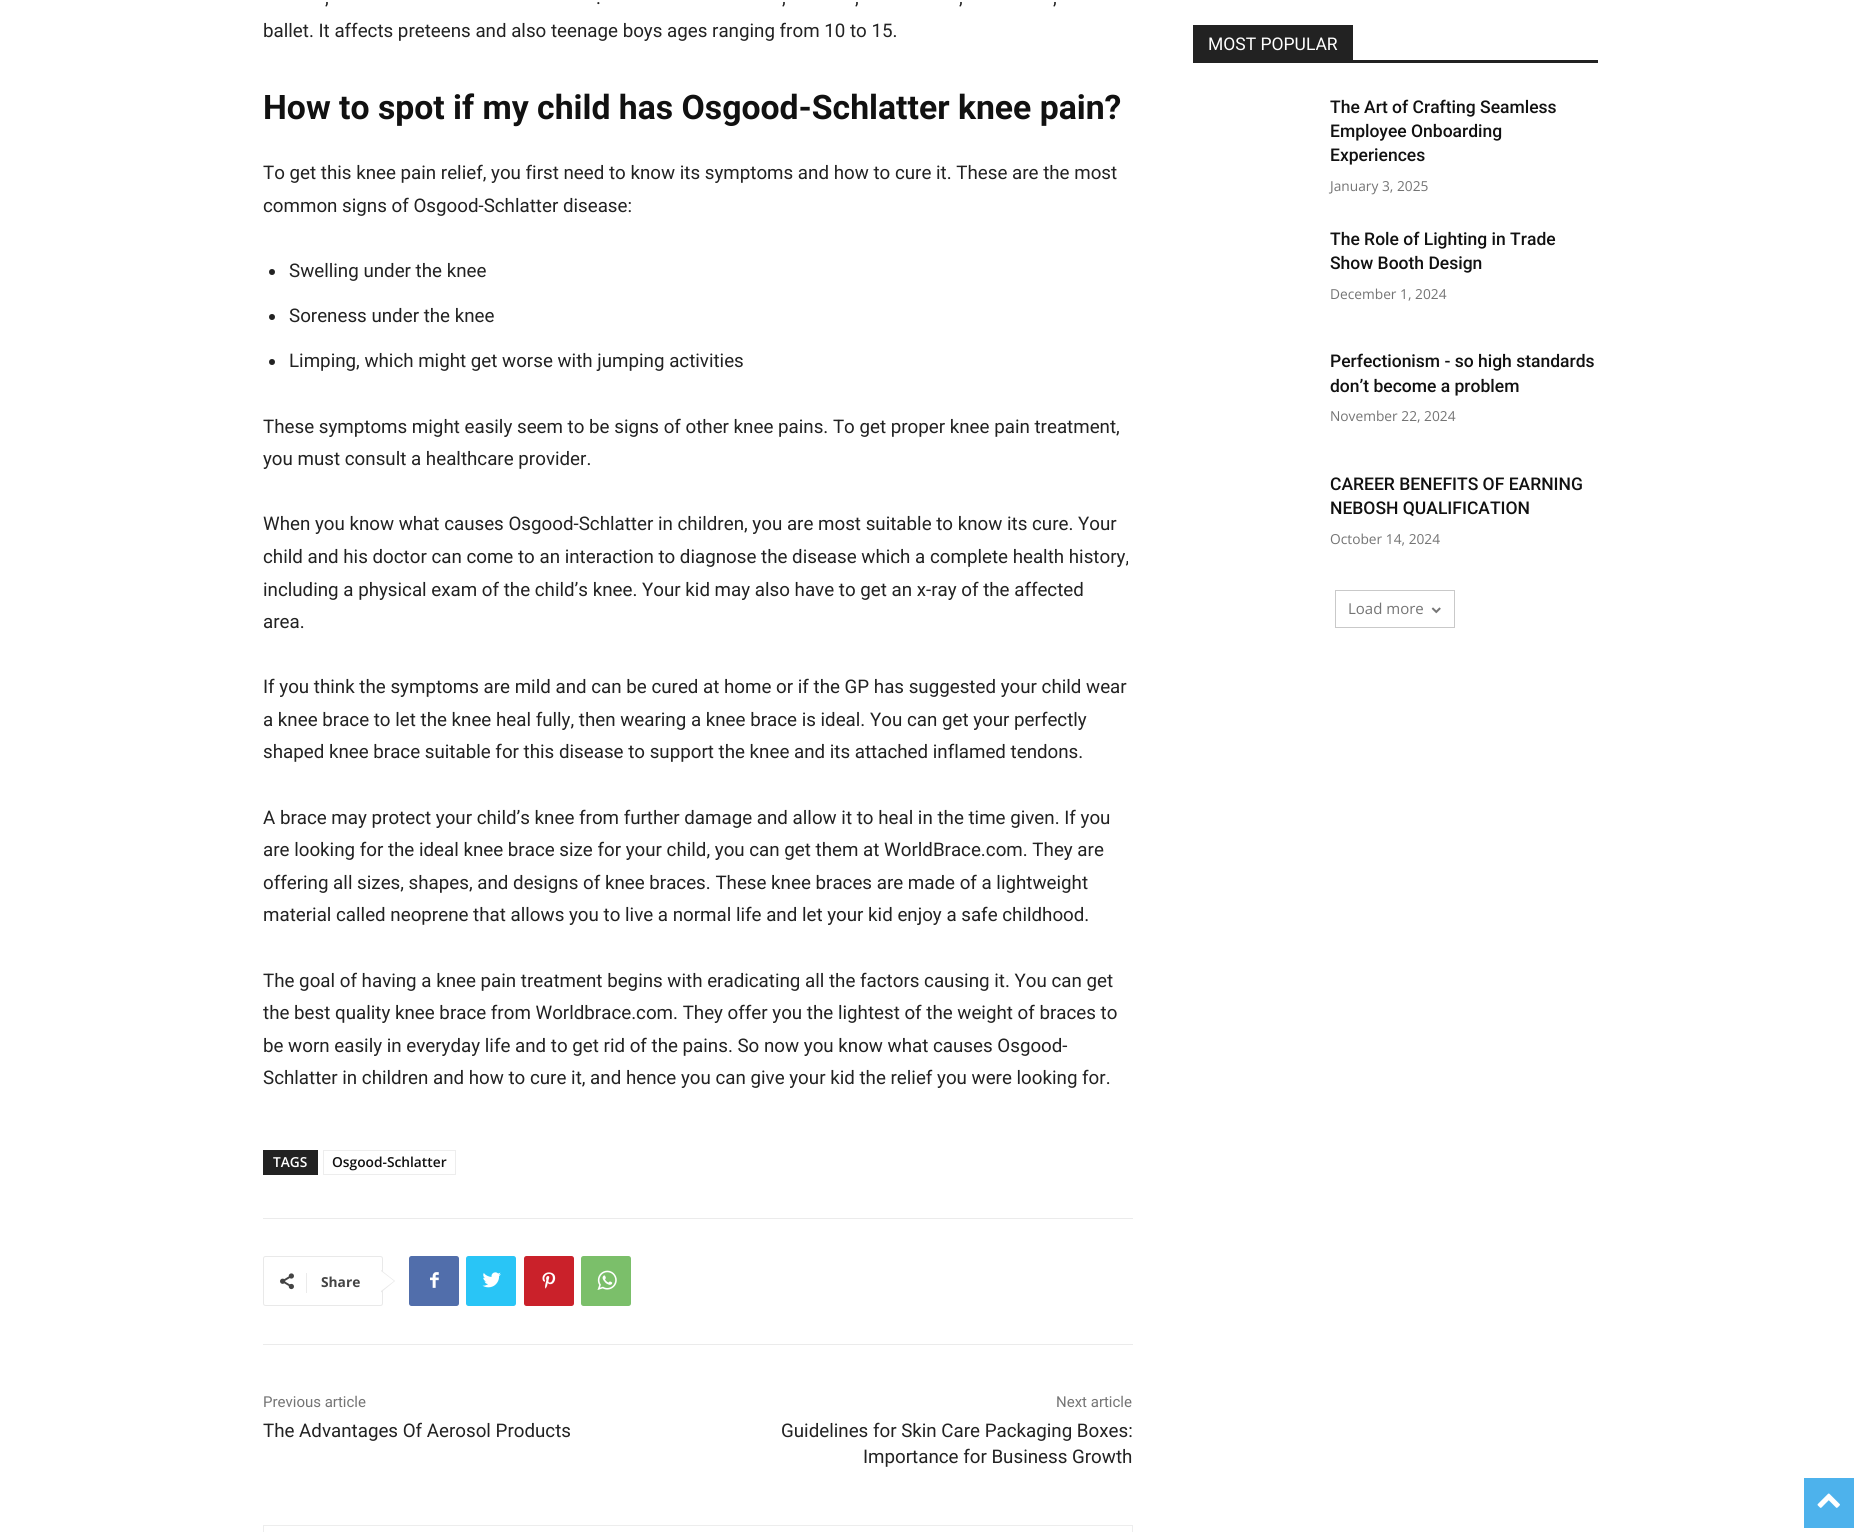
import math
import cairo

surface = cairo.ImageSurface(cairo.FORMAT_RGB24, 1860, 1532)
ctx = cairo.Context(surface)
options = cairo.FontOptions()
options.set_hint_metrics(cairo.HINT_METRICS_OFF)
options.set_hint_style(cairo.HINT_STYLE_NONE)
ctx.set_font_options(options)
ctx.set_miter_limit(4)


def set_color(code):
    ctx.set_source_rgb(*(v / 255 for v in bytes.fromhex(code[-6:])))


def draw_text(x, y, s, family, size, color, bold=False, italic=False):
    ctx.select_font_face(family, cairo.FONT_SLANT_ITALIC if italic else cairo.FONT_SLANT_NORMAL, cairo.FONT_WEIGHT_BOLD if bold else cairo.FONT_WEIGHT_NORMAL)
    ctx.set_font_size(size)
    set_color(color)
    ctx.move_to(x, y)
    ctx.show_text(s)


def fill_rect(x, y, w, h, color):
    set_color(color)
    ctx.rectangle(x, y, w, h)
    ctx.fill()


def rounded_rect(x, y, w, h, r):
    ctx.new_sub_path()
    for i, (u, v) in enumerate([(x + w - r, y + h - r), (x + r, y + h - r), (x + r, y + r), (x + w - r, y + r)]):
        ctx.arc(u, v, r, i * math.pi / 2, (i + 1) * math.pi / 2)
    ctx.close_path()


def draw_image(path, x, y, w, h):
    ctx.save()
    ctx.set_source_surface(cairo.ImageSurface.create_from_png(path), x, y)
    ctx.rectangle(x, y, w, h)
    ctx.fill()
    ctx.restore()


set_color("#ffffff")
ctx.paint()
draw_text(325, 4, ",", "Roboto", 18.75, "#222222")
draw_text(596, 4, ".", "Roboto", 18.75, "#222222")
draw_text(782, 4, ",", "Roboto", 18.75, "#222222")
draw_text(855, 4, ",", "Roboto", 18.75, "#222222")
draw_text(959, 4, ",", "Roboto", 18.75, "#222222")
draw_text(1053, 4, ",", "Roboto", 18.75, "#222222")
draw_text(263, 37, "ballet. It affects preteens and also teenage boys ages ranging from 10 to 15.", "Roboto", 18.75, "#222222")
draw_text(263, 119, "How to spot if my child has Osgood-Schlatter knee pain?", "Roboto", 33.75, "#111111", bold=True)
draw_text(263, 179, "To get this knee pain relief, you first need to know its symptoms and how to cure it. These are the most", "Roboto", 18.75, "#222222")
draw_text(263, 212, "common signs of Osgood-Schlatter disease:", "Roboto", 18.75, "#222222")
ctx.new_path()
ctx.arc(272, 272, 3, 0, 2 * math.pi)
ctx.fill()
draw_text(289, 277, "Swelling under the knee", "Roboto", 18.75, "#222222")
ctx.new_path()
ctx.arc(272, 317, 3, 0, 2 * math.pi)
ctx.fill()
draw_text(289, 322, "Soreness under the knee", "Roboto", 18.75, "#222222")
ctx.new_path()
ctx.arc(272, 362, 3, 0, 2 * math.pi)
ctx.fill()
draw_text(289, 367, "Limping, which might get worse with jumping activities", "Roboto", 18.75, "#222222")
draw_text(263, 433, "These symptoms might easily seem to be signs of other knee pains. To get proper knee pain treatment,", "Roboto", 18.75, "#222222")
draw_text(263, 465, "you must consult a healthcare provider.", "Roboto", 18.75, "#222222")
draw_text(263, 530, "When you know what causes Osgood-Schlatter in children, you are most suitable to know its cure. Your", "Roboto", 18.75, "#222222")
draw_text(263, 563, "child and his doctor can come to an interaction to diagnose the disease which a complete health history,", "Roboto", 18.75, "#222222")
draw_text(263, 596, "including a physical exam of the child’s knee. Your kid may also have to get an x-ray of the affected", "Roboto", 18.75, "#222222")
draw_text(263, 628, "area.", "Roboto", 18.75, "#222222")
draw_text(263, 693, "If you think the symptoms are mild and can be cured at home or if the GP has suggested your child wear", "Roboto", 18.75, "#222222")
draw_text(263, 726, "a knee brace to let the knee heal fully, then wearing a knee brace is ideal. You can get your perfectly", "Roboto", 18.75, "#222222")
draw_text(263, 758, "shaped knee brace suitable for this disease to support the knee and its attached inflamed tendons.", "Roboto", 18.75, "#222222")
draw_text(263, 824, "A brace may protect your child’s knee from further damage and allow it to heal in the time given. If you", "Roboto", 18.75, "#222222")
draw_text(263, 856, "are looking for the ideal knee brace size for your child, you can get them at WorldBrace.com. They are", "Roboto", 18.75, "#222222")
draw_text(263, 889, "offering all sizes, shapes, and designs of knee braces. These knee braces are made of a lightweight", "Roboto", 18.75, "#222222")
draw_text(263, 921, "material called neoprene that allows you to live a normal life and let your kid enjoy a safe childhood.", "Roboto", 18.75, "#222222")
draw_text(263, 987, "The goal of having a knee pain treatment begins with eradicating all the factors causing it. You can get", "Roboto", 18.75, "#222222")
draw_text(263, 1019, "the best quality knee brace from Worldbrace.com. They offer you the lightest of the weight of braces to", "Roboto", 18.75, "#222222")
draw_text(263, 1052, "be worn easily in everyday life and to get rid of the pains. So now you know what causes Osgood-", "Roboto", 18.75, "#222222")
draw_text(263, 1084, "Schlatter in children and how to cure it, and hence you can give your kid the relief you were looking for.", "Roboto", 18.75, "#222222")
fill_rect(263, 1150, 55, 25, "#222222")
draw_text(273, 1167, "TAGS", "Open Sans SemiBold", 13.75, "#ffffff")
ctx.rectangle(323.5, 1150.5, 132, 24)
set_color("#ededed")
ctx.set_line_width(1)
ctx.stroke()
draw_text(332, 1167, "Osgood-Schlatter", "Open Sans SemiBold", 13.75, "#111111")
fill_rect(263, 1218, 870, 1, "#ebebeb")
rounded_rect(263.5, 1256.5, 119, 49, 2)
set_color("#e9e9e9")
ctx.stroke()
ctx.new_path()
ctx.move_to(381, 1292.5)
ctx.line_to(381, 1270)
ctx.line_to(395, 1281)
ctx.close_path()
ctx.fill()
draw_image("assets/img1.png", 280, 1273, 14, 17)
fill_rect(306, 1273, 1, 20, "#ebebeb")
draw_text(321, 1287, "Share", "Open Sans", 13.75, "#444444", bold=True)
set_color("#ffffff")
ctx.new_path()
ctx.move_to(381, 1291)
ctx.line_to(381, 1271)
ctx.line_to(394, 1281)
ctx.close_path()
ctx.fill()
set_color("#516eab")
rounded_rect(409, 1256, 50, 50, 2.5)
ctx.fill()
draw_image("assets/img2.png", 430, 1272, 9, 16)
set_color("#29c5f6")
rounded_rect(466, 1256, 50, 50, 2.5)
ctx.fill()
draw_image("assets/img3.png", 482, 1272, 19, 16)
set_color("#ca212a")
rounded_rect(524, 1256, 50, 50, 2.5)
ctx.fill()
draw_image("assets/img4.png", 542, 1272, 14, 17)
set_color("#7bbf6a")
rounded_rect(581, 1256, 50, 50, 2.5)
ctx.fill()
draw_image("assets/img5.png", 597, 1270, 20, 20)
fill_rect(263, 1344, 870, 1, "#ebebeb")
draw_text(263, 1407, "Previous article", "Roboto", 15, "#747474")
draw_text(263, 1437, "The Advantages Of Aerosol Products", "Roboto", 18.75, "#222222")
draw_text(1056, 1407, "Next article", "Roboto", 15, "#747474")
draw_text(781, 1437, "Guidelines for Skin Care Packaging Boxes:", "Roboto", 18.75, "#222222")
draw_text(863, 1463, "Importance for Business Growth", "Roboto", 18.75, "#222222")
ctx.rectangle(263.5, 1525.5, 869, 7)
set_color("#ededed")
ctx.stroke()
fill_rect(1193, 60, 405, 3, "#222222")
fill_rect(1193, 25, 160, 35, "#222222")
draw_text(1208, 50, "MOST POPULAR", "Roboto", 17.5, "#ffffff")
draw_text(1330, 113, "The Art of Crafting Seamless", "Roboto Medium", 17.5, "#111111")
draw_text(1330, 137, "Employee Onboarding", "Roboto Medium", 17.5, "#111111")
draw_text(1330, 161, "Experiences", "Roboto Medium", 17.5, "#111111")
draw_text(1330, 191, "January 3, 2025", "Open Sans", 13.75, "#747474")
draw_text(1330, 245, "The Role of Lighting in Trade", "Roboto Medium", 17.5, "#111111")
draw_text(1330, 269, "Show Booth Design", "Roboto Medium", 17.5, "#111111")
draw_text(1330, 299, "December 1, 2024", "Open Sans", 13.75, "#747474")
draw_text(1330, 367, "Perfectionism - so high standards", "Roboto Medium", 17.5, "#111111")
draw_text(1330, 392, "don’t become a problem", "Roboto Medium", 17.5, "#111111")
draw_text(1330, 421, "November 22, 2024", "Open Sans", 13.75, "#747474")
draw_text(1330, 490, "CAREER BENEFITS OF EARNING", "Roboto Medium", 17.5, "#111111")
draw_text(1330, 514, "NEBOSH QUALIFICATION", "Roboto Medium", 17.5, "#111111")
draw_text(1330, 544, "October 14, 2024", "Open Sans", 13.75, "#747474")
ctx.rectangle(1335.5, 590.5, 119, 37)
set_color("#c9c9c9")
ctx.stroke()
draw_text(1348, 614, "Load more", "Open Sans", 15, "#747474")
draw_image("assets/img6.png", 1431, 607, 10, 7)
fill_rect(1804, 1478, 50, 50, "#4db2ec")
draw_image("assets/img7.png", 1817, 1493, 23, 15)
surface.write_to_png("output.png")
